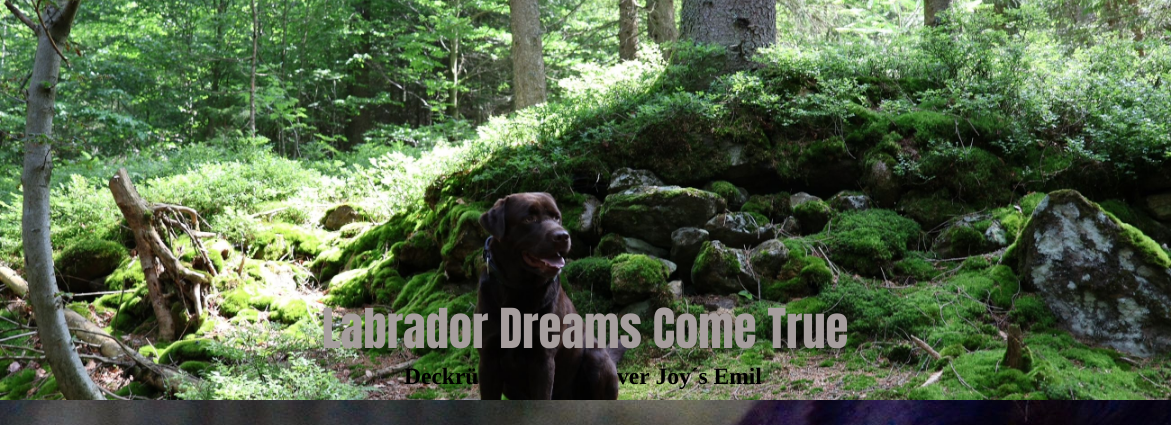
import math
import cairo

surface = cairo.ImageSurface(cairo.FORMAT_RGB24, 1171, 425)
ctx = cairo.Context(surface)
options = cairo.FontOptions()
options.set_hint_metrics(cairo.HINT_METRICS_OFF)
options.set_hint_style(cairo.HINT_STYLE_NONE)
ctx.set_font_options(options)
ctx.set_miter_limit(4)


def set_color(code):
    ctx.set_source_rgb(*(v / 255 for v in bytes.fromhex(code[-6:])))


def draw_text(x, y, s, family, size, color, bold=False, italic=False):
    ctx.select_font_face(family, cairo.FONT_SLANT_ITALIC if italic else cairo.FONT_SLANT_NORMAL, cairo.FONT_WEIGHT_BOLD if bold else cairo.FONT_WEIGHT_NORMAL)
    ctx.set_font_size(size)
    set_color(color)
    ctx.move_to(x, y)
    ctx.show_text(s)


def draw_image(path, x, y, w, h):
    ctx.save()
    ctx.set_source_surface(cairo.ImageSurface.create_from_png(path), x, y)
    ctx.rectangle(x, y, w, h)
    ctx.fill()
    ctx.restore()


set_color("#ffffff")
ctx.paint()
draw_image("assets/img1.png", 0, 0, 1171, 400)
draw_text(322, 348, "Labrador Dreams Come True", "Anton", 46.8, "#a69e9e")
draw_text(404, 384, "Deckrü", "Liberation Serif", 23.5, "#000000", bold=True)
draw_text(617, 384, "ver Joy´s Emil", "Liberation Serif", 23.5, "#000000", bold=True)
draw_image("assets/img2.png", 0, 400, 1171, 25)
surface.write_to_png("output.png")
